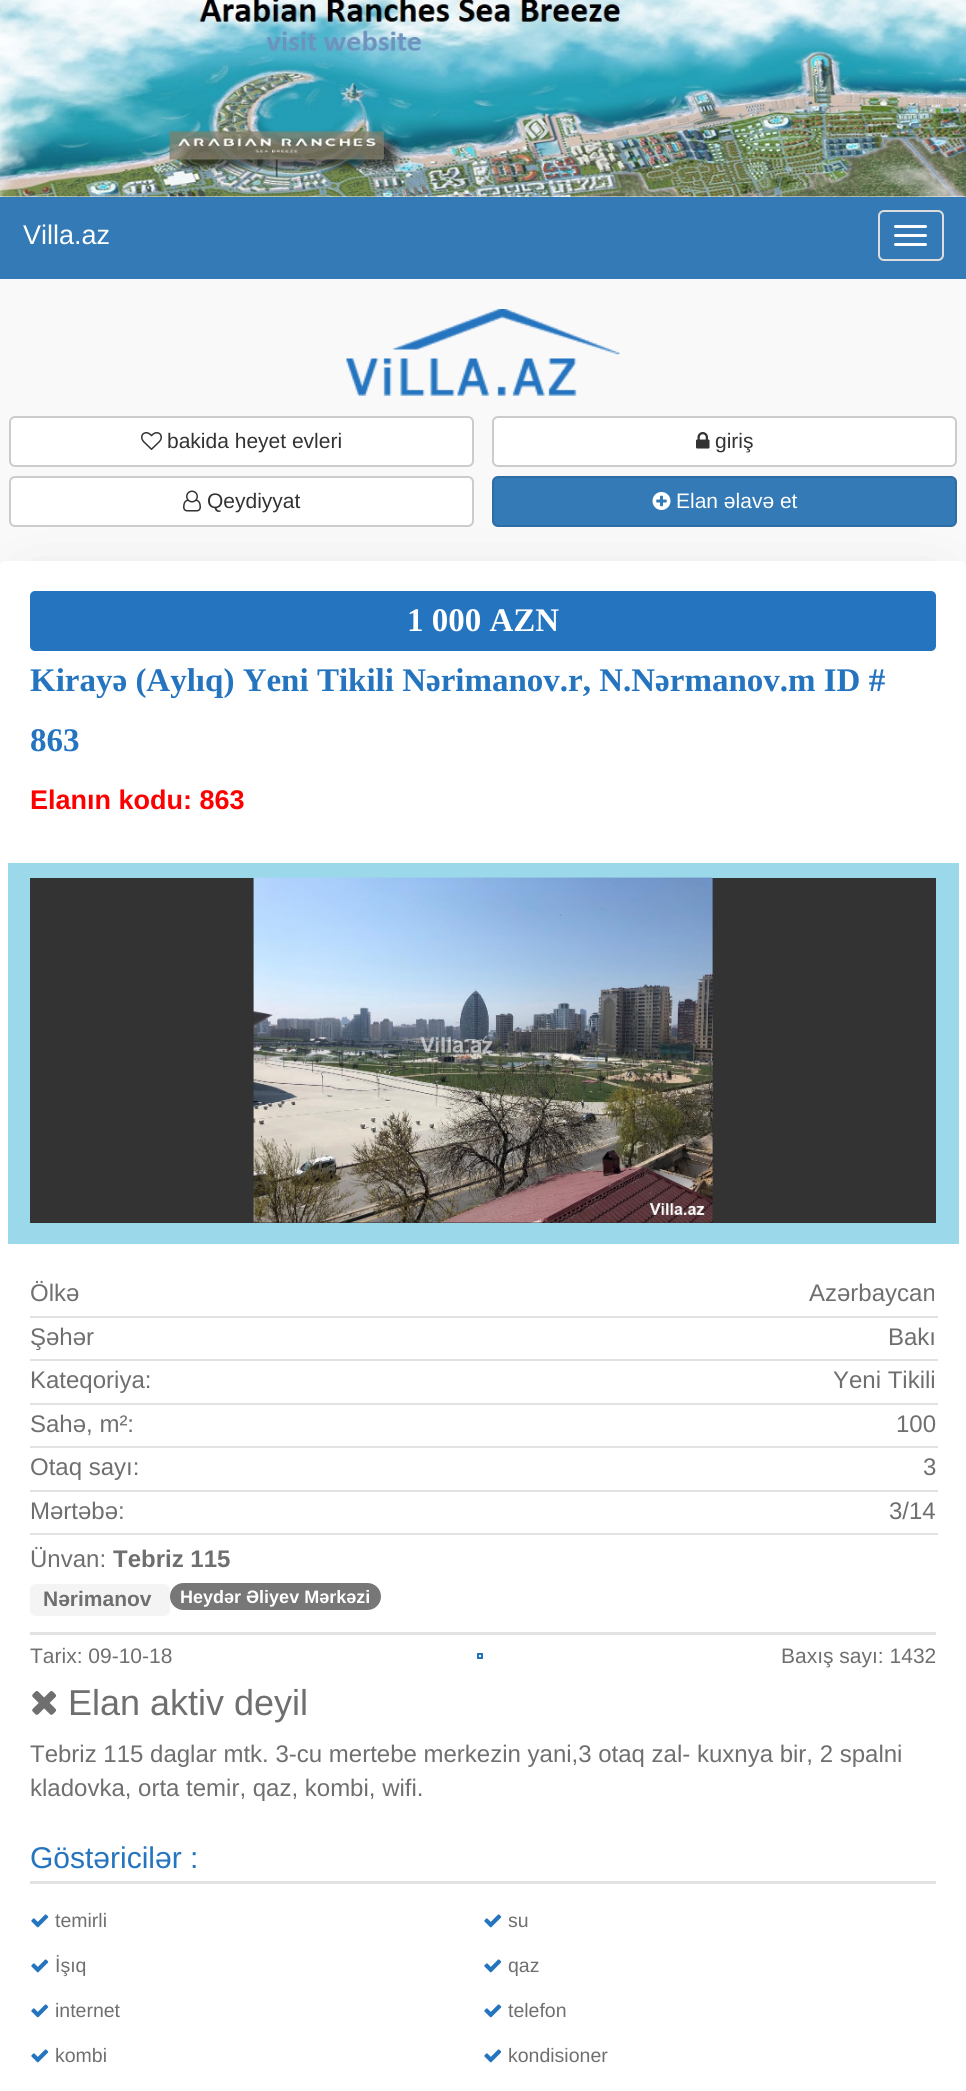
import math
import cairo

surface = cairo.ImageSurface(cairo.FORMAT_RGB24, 966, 2091)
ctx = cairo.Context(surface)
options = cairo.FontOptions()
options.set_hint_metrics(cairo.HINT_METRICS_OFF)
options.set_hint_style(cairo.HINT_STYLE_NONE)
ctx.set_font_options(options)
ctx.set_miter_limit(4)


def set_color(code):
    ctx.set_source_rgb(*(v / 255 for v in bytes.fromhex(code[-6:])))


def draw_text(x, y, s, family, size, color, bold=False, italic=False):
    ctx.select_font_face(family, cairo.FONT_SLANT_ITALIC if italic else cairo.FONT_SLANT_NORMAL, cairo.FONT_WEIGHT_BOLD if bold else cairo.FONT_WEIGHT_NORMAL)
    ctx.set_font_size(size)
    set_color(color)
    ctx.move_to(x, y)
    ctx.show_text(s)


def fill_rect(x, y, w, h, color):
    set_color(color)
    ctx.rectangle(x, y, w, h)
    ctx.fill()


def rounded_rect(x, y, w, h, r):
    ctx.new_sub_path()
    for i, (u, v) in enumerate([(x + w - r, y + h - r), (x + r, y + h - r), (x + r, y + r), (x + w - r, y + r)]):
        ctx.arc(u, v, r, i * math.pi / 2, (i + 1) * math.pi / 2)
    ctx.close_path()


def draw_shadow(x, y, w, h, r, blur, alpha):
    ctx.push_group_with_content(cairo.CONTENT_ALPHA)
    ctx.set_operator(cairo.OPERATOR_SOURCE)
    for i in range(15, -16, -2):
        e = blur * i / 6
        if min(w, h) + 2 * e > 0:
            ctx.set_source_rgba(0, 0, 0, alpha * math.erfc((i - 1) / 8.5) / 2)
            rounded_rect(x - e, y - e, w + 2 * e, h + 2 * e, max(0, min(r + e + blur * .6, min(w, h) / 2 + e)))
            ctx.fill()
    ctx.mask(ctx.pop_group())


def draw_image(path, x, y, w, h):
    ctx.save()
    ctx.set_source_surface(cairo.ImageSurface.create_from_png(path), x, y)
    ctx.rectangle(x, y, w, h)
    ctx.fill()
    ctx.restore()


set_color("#f9f9f9")
ctx.paint()
draw_image("assets/img1.png", 0, 0, 966, 197)
fill_rect(0, 197, 966, 82, "#337ab7")
draw_text(23, 244, "Villa.az", "Liberation Sans", 27, "#ffffff")
rounded_rect(879, 211, 64, 49, 5)
set_color("#dddddd")
ctx.stroke()
set_color("#ffffff")
rounded_rect(894, 225, 33, 3, 1.5)
ctx.fill()
rounded_rect(894, 234, 33, 3, 1.5)
ctx.fill()
rounded_rect(894, 243, 33, 3, 1.5)
ctx.fill()
draw_image("assets/img2.png", 346, 309, 274, 87)
rounded_rect(10, 417, 463, 49, 5)
ctx.fill_preserve()
set_color("#cccccc")
ctx.stroke()
draw_image("assets/img3.png", 141, 432, 21, 18)
draw_text(167, 448, "bakida heyet evleri", "Liberation Sans", 21, "#333333")
set_color("#ffffff")
rounded_rect(493, 417, 463, 49, 5)
ctx.fill_preserve()
set_color("#cccccc")
ctx.stroke()
draw_image("assets/img4.png", 696, 432, 14, 17)
draw_text(715, 448, "giriş", "Liberation Sans", 21, "#333333")
set_color("#000000")
draw_shadow(30, 599, 906, 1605, 0, 37.5, 0.15)
set_color("#ffffff")
rounded_rect(10, 477, 463, 49, 5)
ctx.fill_preserve()
set_color("#cccccc")
ctx.stroke()
draw_image("assets/img5.png", 183, 490, 18, 22)
draw_text(207, 508, "Qeydiyyat", "Liberation Sans", 21, "#333333")
set_color("#337ab7")
rounded_rect(493, 477, 463, 49, 5)
ctx.fill_preserve()
set_color("#2e6da4")
ctx.stroke()
draw_image("assets/img6.png", 652, 492, 19, 18)
draw_text(676, 508, "Elan əlavə et", "Liberation Sans", 21, "#ffffff")
rounded_rect(0, 561, 966, 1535, 5)
ctx.fill()
set_color("#2474bf")
rounded_rect(30, 591, 906, 60, 5)
ctx.fill()
draw_text(407, 631, "1 000 AZN", "Liberation Serif", 33, "#ffffff", bold=True)
draw_text(30, 691, "Kirayə (Aylıq) Yeni Tikili Nərimanov.r, N.Nərmanov.m ID #", "Liberation Serif", 33, "#2474bf", bold=True)
draw_text(30, 751, "863", "Liberation Serif", 33, "#2474bf", bold=True)
draw_text(30, 809, "Elanın kodu: 863", "Liberation Sans", 27, "#ff0000", bold=True)
fill_rect(8, 863, 951, 381, "#9bd8ea")
fill_rect(30, 878, 906, 345, "#333333")
draw_image("assets/img7.png", 253, 877, 460, 346)
fill_rect(30, 1316, 908, 2, "#e2e2e2")
draw_text(30, 1301, "Ölkə", "Liberation Sans", 24, "#6f6f6f")
draw_text(809, 1301, "Azərbaycan", "Liberation Sans", 24, "#6f6f6f")
fill_rect(30, 1359, 908, 2, "#e2e2e2")
draw_text(30, 1345, "Şəhər", "Liberation Sans", 24, "#6f6f6f")
draw_text(888, 1345, "Bakı", "Liberation Sans", 24, "#6f6f6f")
fill_rect(30, 1403, 908, 2, "#e2e2e2")
draw_text(30, 1388, "Kateqoriya:", "Liberation Sans", 24, "#6f6f6f")
draw_text(833, 1388, "Yeni Tikili", "Liberation Sans", 24, "#6f6f6f")
fill_rect(30, 1446, 908, 2, "#e2e2e2")
draw_text(30, 1432, "Sahə, m²:", "Liberation Sans", 24, "#6f6f6f")
draw_text(896, 1432, "100", "Liberation Sans", 24, "#6f6f6f")
fill_rect(30, 1490, 908, 2, "#e2e2e2")
draw_text(30, 1475, "Otaq sayı:", "Liberation Sans", 24, "#6f6f6f")
draw_text(923, 1475, "3", "Liberation Sans", 24, "#6f6f6f")
fill_rect(30, 1533, 908, 2, "#e2e2e2")
draw_text(30, 1519, "Mərtəbə:", "Liberation Sans", 24, "#6f6f6f")
draw_text(889, 1519, "3/14", "Liberation Sans", 24, "#6f6f6f")
draw_text(30, 1567, "Ünvan:", "Liberation Sans", 24, "#6f6f6f")
draw_text(113, 1567, "Tebriz 115", "Liberation Sans", 24, "#6f6f6f", bold=True)
fill_rect(30, 1632, 906, 3, "#e2e2e2")
set_color("#f4f4f4")
rounded_rect(30, 1584, 140, 32, 6)
ctx.fill()
draw_text(43, 1606, "Nərimanov", "Liberation Sans", 21, "#6f6f6f", bold=True)
set_color("#777777")
rounded_rect(170, 1583, 211, 27, 13.5)
ctx.fill()
draw_text(180, 1603, "Heydər Əliyev Mərkəzi", "Liberation Sans", 18, "#ffffff", bold=True)
draw_text(30, 1663, "Tarix: 09-10-18", "Liberation Sans", 21, "#6f6f6f")
ctx.rectangle(478, 1654, 4, 4)
set_color("#2474bf")
ctx.stroke()
draw_text(781, 1663, "Baxış sayı: 1432", "Liberation Sans", 21, "#6f6f6f")
draw_image("assets/img8.png", 32, 1691, 24, 24)
draw_text(68, 1715, "Elan aktiv deyil", "Liberation Sans", 36, "#6f6f6f")
draw_text(30, 1762, "Tebriz 115 daglar mtk. 3-cu mertebe merkezin yani,3 otaq zal- kuxnya bir, 2 spalni", "Liberation Sans", 24, "#6f6f6f")
draw_text(30, 1796, "kladovka, orta temir, qaz, kombi, wifi.", "Liberation Sans", 24, "#6f6f6f")
fill_rect(30, 1881, 906, 3, "#e2e2e2")
draw_text(30, 1868, "Göstəricilər :", "Liberation Sans", 30, "#2474bf")
draw_image("assets/img9.png", 31, 1914, 18, 14)
draw_text(55, 1927, "temirli", "Liberation Sans", 19.5, "#6f6f6f")
draw_image("assets/img9.png", 484, 1914, 18, 14)
draw_text(508, 1927, "su", "Liberation Sans", 19.5, "#6f6f6f")
draw_image("assets/img9.png", 31, 1959, 18, 14)
draw_text(55, 1972, "İşıq", "Liberation Sans", 19.5, "#6f6f6f")
draw_image("assets/img9.png", 484, 1959, 18, 14)
draw_text(508, 1972, "qaz", "Liberation Sans", 19.5, "#6f6f6f")
draw_image("assets/img9.png", 31, 2004, 18, 14)
draw_text(55, 2017, "internet", "Liberation Sans", 19.5, "#6f6f6f")
draw_image("assets/img9.png", 484, 2004, 18, 14)
draw_text(508, 2017, "telefon", "Liberation Sans", 19.5, "#6f6f6f")
draw_image("assets/img9.png", 31, 2049, 18, 14)
draw_text(55, 2062, "kombi", "Liberation Sans", 19.5, "#6f6f6f")
draw_image("assets/img9.png", 484, 2049, 18, 14)
draw_text(508, 2062, "kondisioner", "Liberation Sans", 19.5, "#6f6f6f")
surface.write_to_png("output.png")
